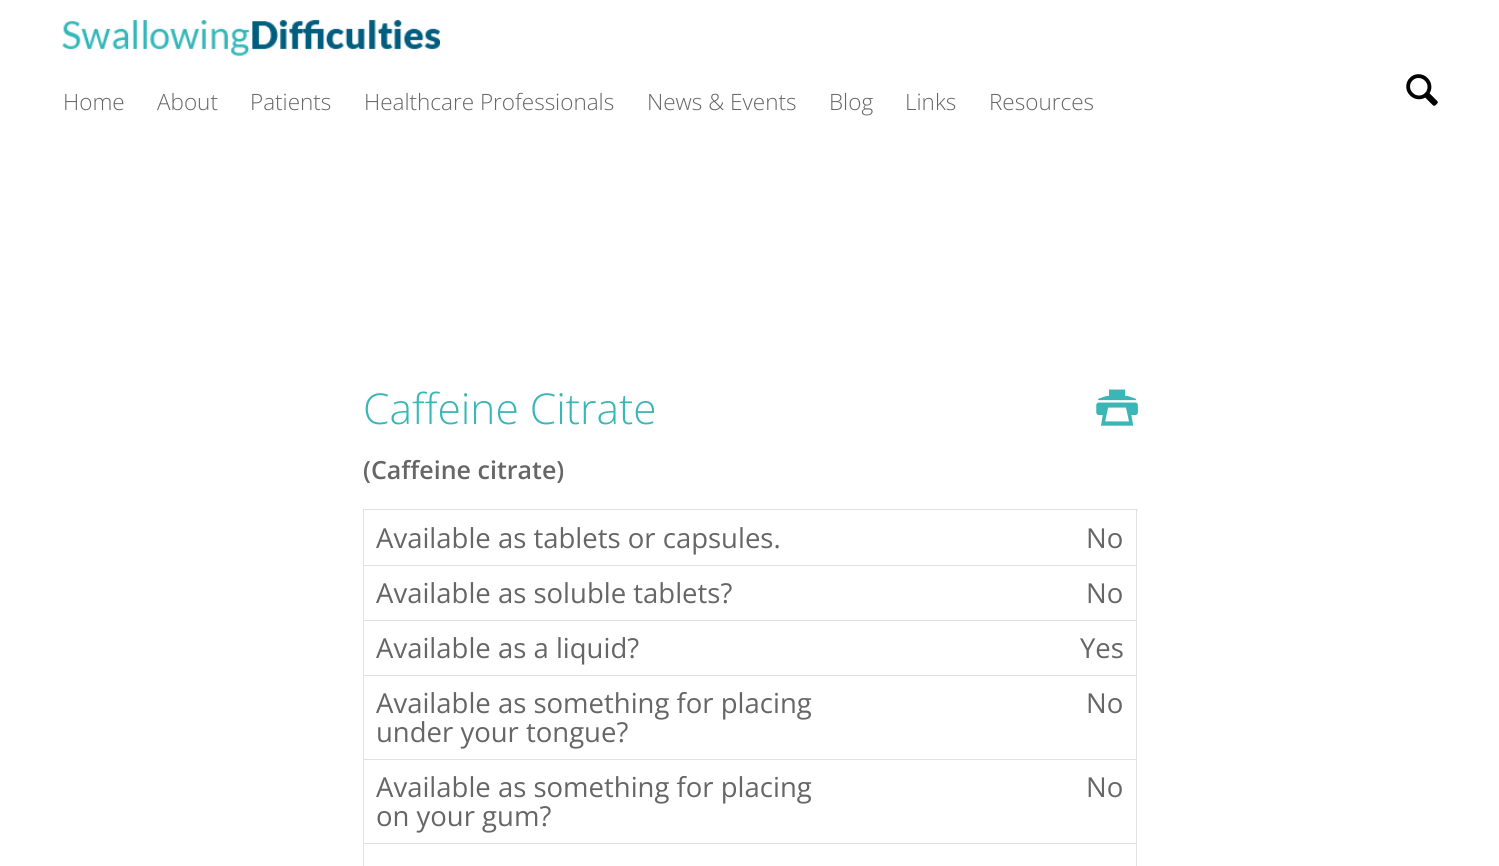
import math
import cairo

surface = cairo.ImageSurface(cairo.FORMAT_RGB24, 1499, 866)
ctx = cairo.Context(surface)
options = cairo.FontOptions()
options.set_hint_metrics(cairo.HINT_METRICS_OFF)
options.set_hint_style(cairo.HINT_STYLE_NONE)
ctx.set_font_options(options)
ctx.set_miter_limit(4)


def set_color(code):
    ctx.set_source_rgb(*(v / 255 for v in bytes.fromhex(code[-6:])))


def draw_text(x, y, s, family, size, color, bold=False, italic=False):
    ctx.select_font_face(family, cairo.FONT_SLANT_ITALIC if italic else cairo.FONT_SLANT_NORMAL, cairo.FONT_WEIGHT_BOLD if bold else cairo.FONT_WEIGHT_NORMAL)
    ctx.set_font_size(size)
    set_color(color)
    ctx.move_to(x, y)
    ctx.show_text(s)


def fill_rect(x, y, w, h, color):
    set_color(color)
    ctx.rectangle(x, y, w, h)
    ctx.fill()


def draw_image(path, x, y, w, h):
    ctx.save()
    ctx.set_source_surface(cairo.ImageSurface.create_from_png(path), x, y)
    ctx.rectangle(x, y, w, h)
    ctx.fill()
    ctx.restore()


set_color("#ffffff")
ctx.paint()
draw_image("assets/img1.png", 62, 19, 378, 38)
draw_text(63, 110, "Home", "Open Sans Light", 22.5, "#666666")
draw_text(157, 110, "About", "Open Sans Light", 22.5, "#666666")
draw_text(250, 110, "Patients", "Open Sans Light", 22.5, "#666666")
draw_text(364, 110, "Healthcare Professionals", "Open Sans Light", 22.5, "#666666")
draw_text(647, 110, "News & Events", "Open Sans Light", 22.5, "#666666")
draw_text(829, 110, "Blog", "Open Sans Light", 22.5, "#666666")
draw_text(905, 110, "Links", "Open Sans Light", 22.5, "#666666")
draw_text(989, 110, "Resources", "Open Sans Light", 22.5, "#666666")
draw_image("assets/img2.png", 1406, 74, 32, 32)
draw_text(363, 424, "Caffeine Citrate", "Open Sans Light", 42.5, "#3ab6b6")
draw_image("assets/img3.png", 1096, 389, 42, 37)
draw_text(363, 479, "(Caffeine citrate)", "Open Sans SemiBold", 25, "#666666")
fill_rect(363, 509, 775, 1, "#e1e1e1")
fill_rect(1136, 509, 1, 357, "#e1e1e1")
fill_rect(363, 509, 1, 357, "#e1e1e1")
fill_rect(364, 565, 772, 1, "#e1e1e1")
draw_text(376, 548, "Available as tablets or capsules.", "Open Sans", 27.5, "#666666")
draw_text(1086, 548, "No", "Open Sans", 27.5, "#666666")
fill_rect(364, 620, 772, 1, "#e1e1e1")
draw_text(376, 603, "Available as soluble tablets?", "Open Sans", 27.5, "#666666")
draw_text(1086, 603, "No", "Open Sans", 27.5, "#666666")
fill_rect(364, 675, 772, 1, "#e1e1e1")
draw_text(376, 658, "Available as a liquid?", "Open Sans", 27.5, "#666666")
draw_text(1080, 658, "Yes", "Open Sans", 27.5, "#666666")
fill_rect(364, 759, 772, 1, "#e1e1e1")
draw_text(376, 713, "Available as something for placing", "Open Sans", 27.5, "#666666")
draw_text(376, 742, "under your tongue?", "Open Sans", 27.5, "#666666")
draw_text(1086, 713, "No", "Open Sans", 27.5, "#666666")
fill_rect(364, 843, 772, 1, "#e1e1e1")
draw_text(376, 797, "Available as something for placing", "Open Sans", 27.5, "#666666")
draw_text(376, 826, "on your gum?", "Open Sans", 27.5, "#666666")
draw_text(1086, 797, "No", "Open Sans", 27.5, "#666666")
surface.write_to_png("output.png")
